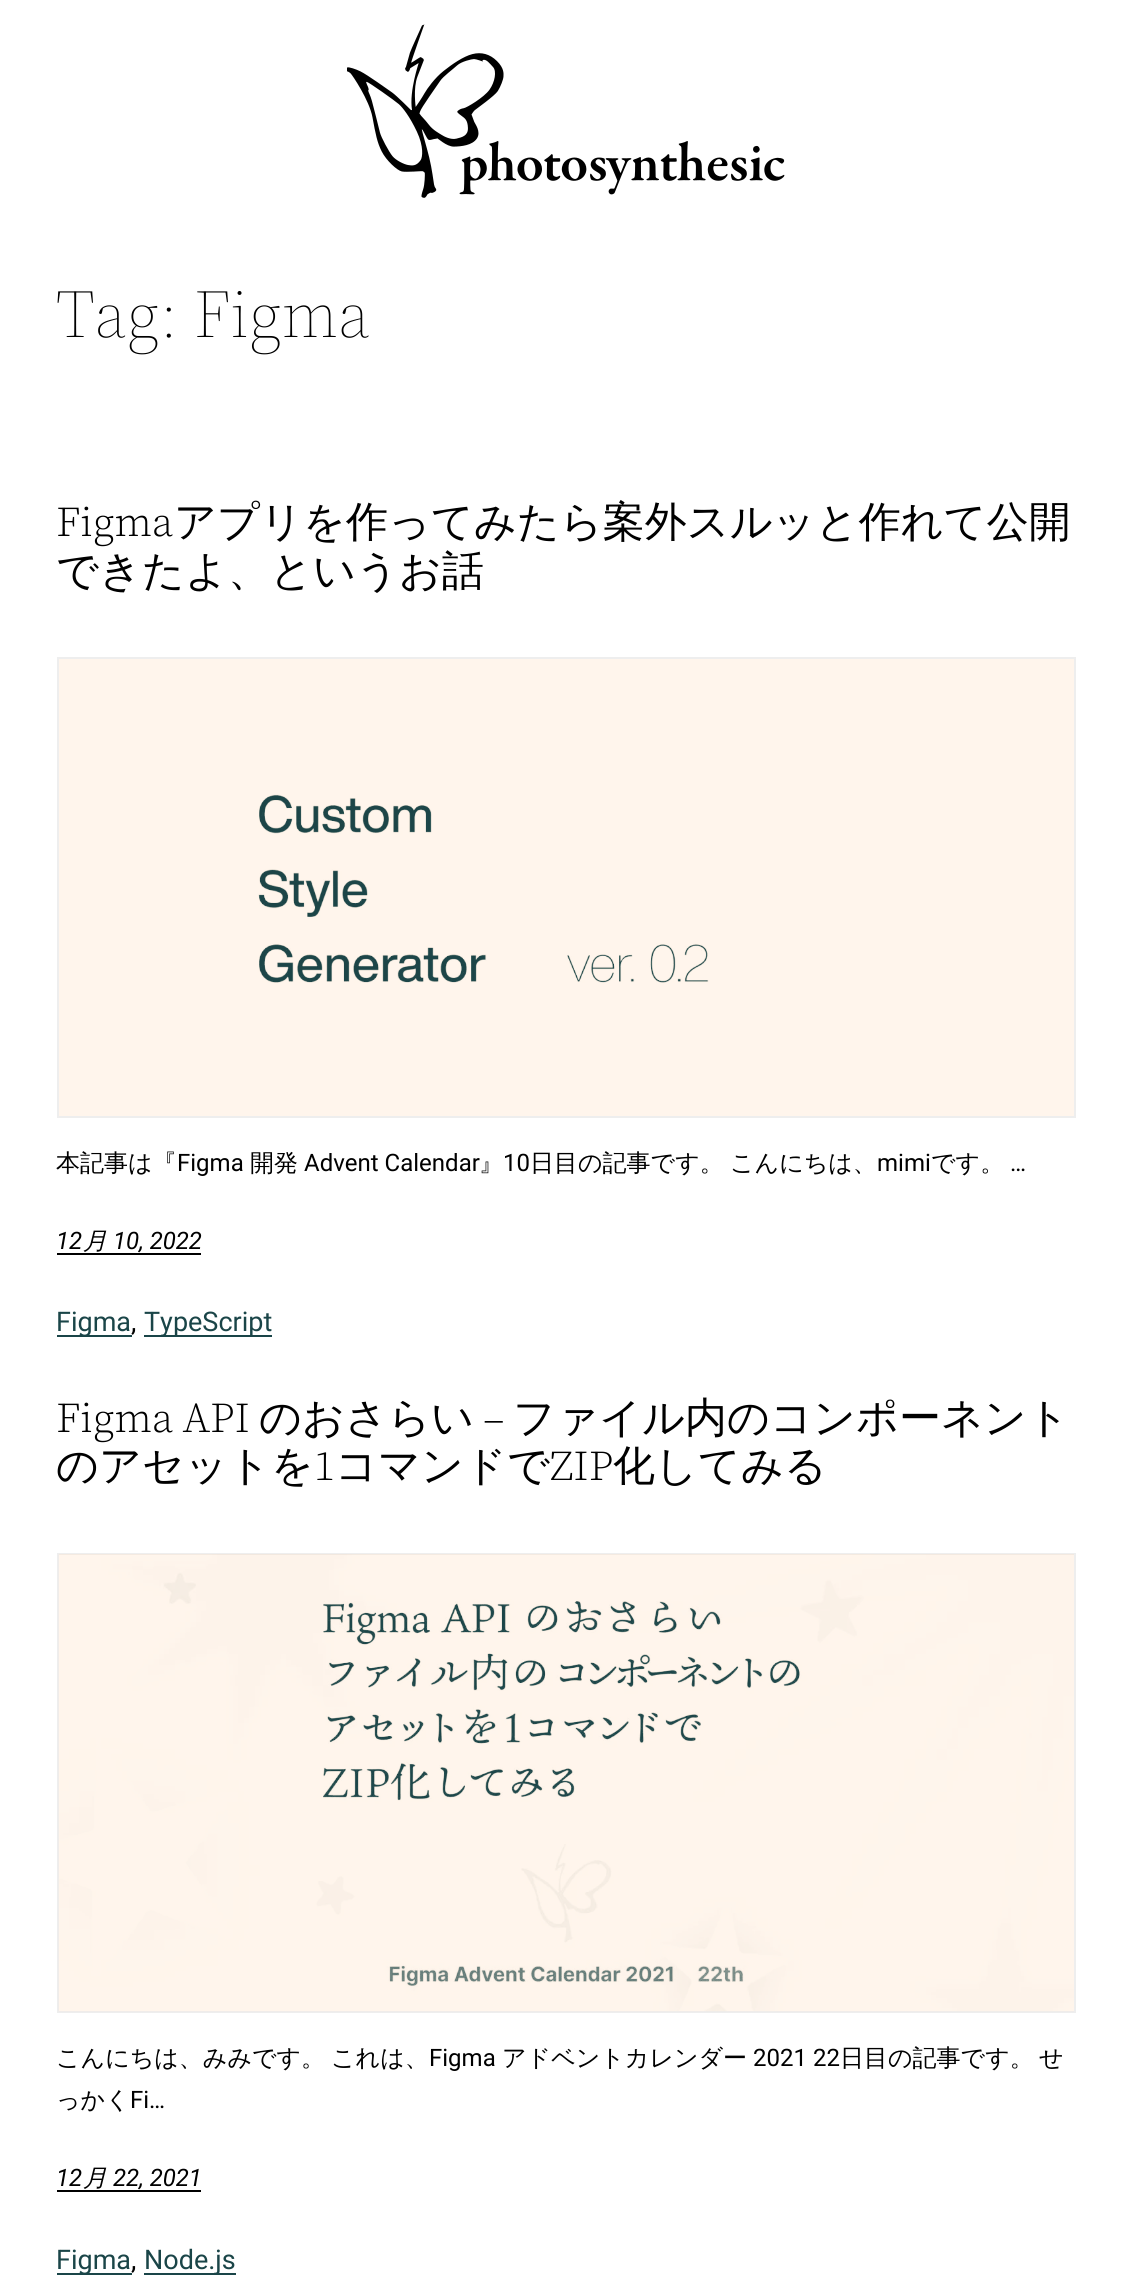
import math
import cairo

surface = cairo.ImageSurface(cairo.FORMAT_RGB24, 1129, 2292)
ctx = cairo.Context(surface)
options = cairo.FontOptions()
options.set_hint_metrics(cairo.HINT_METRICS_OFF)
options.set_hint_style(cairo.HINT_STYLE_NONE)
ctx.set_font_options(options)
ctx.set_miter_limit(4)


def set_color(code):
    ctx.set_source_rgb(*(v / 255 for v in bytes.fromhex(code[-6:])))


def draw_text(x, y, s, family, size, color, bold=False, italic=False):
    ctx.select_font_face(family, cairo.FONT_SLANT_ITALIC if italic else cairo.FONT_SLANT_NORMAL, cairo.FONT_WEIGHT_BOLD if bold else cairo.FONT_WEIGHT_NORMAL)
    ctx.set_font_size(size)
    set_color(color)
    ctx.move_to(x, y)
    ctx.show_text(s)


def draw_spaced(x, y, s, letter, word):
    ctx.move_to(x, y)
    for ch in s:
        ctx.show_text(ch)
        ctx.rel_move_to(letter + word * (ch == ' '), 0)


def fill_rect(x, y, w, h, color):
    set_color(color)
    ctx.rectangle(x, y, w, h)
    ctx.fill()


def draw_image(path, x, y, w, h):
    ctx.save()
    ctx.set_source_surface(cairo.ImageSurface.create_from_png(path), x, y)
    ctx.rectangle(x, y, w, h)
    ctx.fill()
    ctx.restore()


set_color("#ffffff")
ctx.paint()
draw_image("assets/img1.png", 347, 24, 438, 174)
draw_text(56, 337, "Tag: Figma", "Source Serif 4 ExtraLight", 67.5, "#000000")
draw_text(56, 536, "Figma", "Source Serif 4 Light", 42, "#000000")
draw_text(174, 536, "アプリを作ってみたら案外スルッと作れて公開", "WenQuanYi Zen Hei Medium", 42, "#000000")
draw_text(56, 585, "できたよ、というお話", "WenQuanYi Zen Hei Medium", 42, "#000000")
ctx.rectangle(58, 658, 1017, 459)
set_color("#eeeeee")
ctx.stroke()
draw_image("assets/img2.png", 59, 659, 1015, 457)
draw_text(56, 1171, "本記事は『", "WenQuanYi Zen Hei Medium", 24, "#000000")
draw_text(177, 1171, "Figma", "Roboto", 24, "#000000")
draw_text(250, 1171, "開発", "WenQuanYi Zen Hei Medium", 24, "#000000")
draw_text(304, 1171, "Advent Calendar", "Roboto", 24, "#000000")
draw_text(479, 1171, "』", "WenQuanYi Zen Hei Medium", 24, "#000000")
draw_text(503, 1171, "10", "Roboto", 24, "#000000")
draw_text(530, 1171, "日目の記事です。", "WenQuanYi Zen Hei Medium", 24, "#000000")
draw_text(730, 1171, "こんにちは、", "WenQuanYi Zen Hei Medium", 24, "#000000")
draw_text(877, 1171, "mimi", "Roboto", 24, "#000000")
draw_text(931, 1171, "です。", "WenQuanYi Zen Hei Medium", 24, "#000000")
draw_text(1010, 1171, "…", "Roboto", 24, "#000000")
draw_text(56, 1249, "12", "Roboto", 24, "#000000", italic=True)
draw_text(83, 1249, "月", "WenQuanYi Zen Hei Medium", 24, "#000000", italic=True)
draw_text(113, 1249, "10, 2022", "Roboto", 24, "#000000", italic=True)
fill_rect(57, 1253, 144, 2, "#000000")
fill_rect(57, 1335, 75, 2, "#1a4548")
draw_text(56, 1331, "Figma", "Roboto", 27, "#1a4548")
draw_text(131, 1331, ",", "Roboto", 27, "#000000")
fill_rect(144, 1335, 128, 2, "#1a4548")
draw_text(144, 1331, "TypeScript", "Roboto", 27, "#1a4548")
ctx.select_font_face("Source Serif 4 Light")
ctx.set_font_size(42)
set_color("#000000")
draw_spaced(56, 1432, "Figma API", 0, -1)
draw_text(259, 1432, "のおさらい", "WenQuanYi Zen Hei Medium", 42, "#000000")
draw_text(483, 1432, "–", "Source Serif 4 Light", 42, "#000000")
draw_text(513, 1432, "ファイル内のコンポーネント", "WenQuanYi Zen Hei Medium", 42, "#000000")
draw_text(56, 1480, "のアセットを", "WenQuanYi Zen Hei Medium", 42, "#000000")
draw_text(314, 1480, "1", "Source Serif 4 Light", 42, "#000000")
draw_text(335, 1480, "コマンドで", "WenQuanYi Zen Hei Medium", 42, "#000000")
draw_text(550, 1480, "ZIP", "Source Serif 4 Light", 42, "#000000")
draw_text(613, 1480, "化してみる", "WenQuanYi Zen Hei Medium", 42, "#000000")
ctx.rectangle(58, 1554, 1017, 458)
set_color("#eeeeee")
ctx.stroke()
draw_image("assets/img3.png", 58, 1554, 1016, 458)
draw_text(56, 2066, "こんにちは、みみです。", "WenQuanYi Zen Hei Medium", 24, "#000000")
draw_text(331, 2066, "これは、", "WenQuanYi Zen Hei Medium", 24, "#000000")
draw_text(429, 2066, "Figma", "Roboto", 24, "#000000")
draw_text(502, 2066, "アドベントカレンダー", "WenQuanYi Zen Hei Medium", 24, "#000000")
draw_text(753, 2066, "2021 22", "Roboto", 24, "#000000")
draw_text(840, 2066, "日目の記事です。", "WenQuanYi Zen Hei Medium", 24, "#000000")
draw_text(1039, 2066, "せ", "WenQuanYi Zen Hei Medium", 24, "#000000")
draw_text(56, 2108, "っかく", "WenQuanYi Zen Hei Medium", 24, "#000000")
draw_text(130, 2108, "Fi…", "Roboto", 24, "#000000")
draw_text(56, 2186, "12", "Roboto", 24, "#000000", italic=True)
draw_text(83, 2186, "月", "WenQuanYi Zen Hei Medium", 24, "#000000", italic=True)
draw_text(113, 2186, "22, 2021", "Roboto", 24, "#000000", italic=True)
fill_rect(57, 2190, 144, 2, "#000000")
fill_rect(57, 2273, 75, 2, "#1a4548")
draw_text(56, 2269, "Figma", "Roboto", 27, "#1a4548")
draw_text(131, 2269, ",", "Roboto", 27, "#000000")
fill_rect(144, 2273, 92, 2, "#1a4548")
draw_text(144, 2269, "Node.js", "Roboto", 27, "#1a4548")
surface.write_to_png("output.png")
